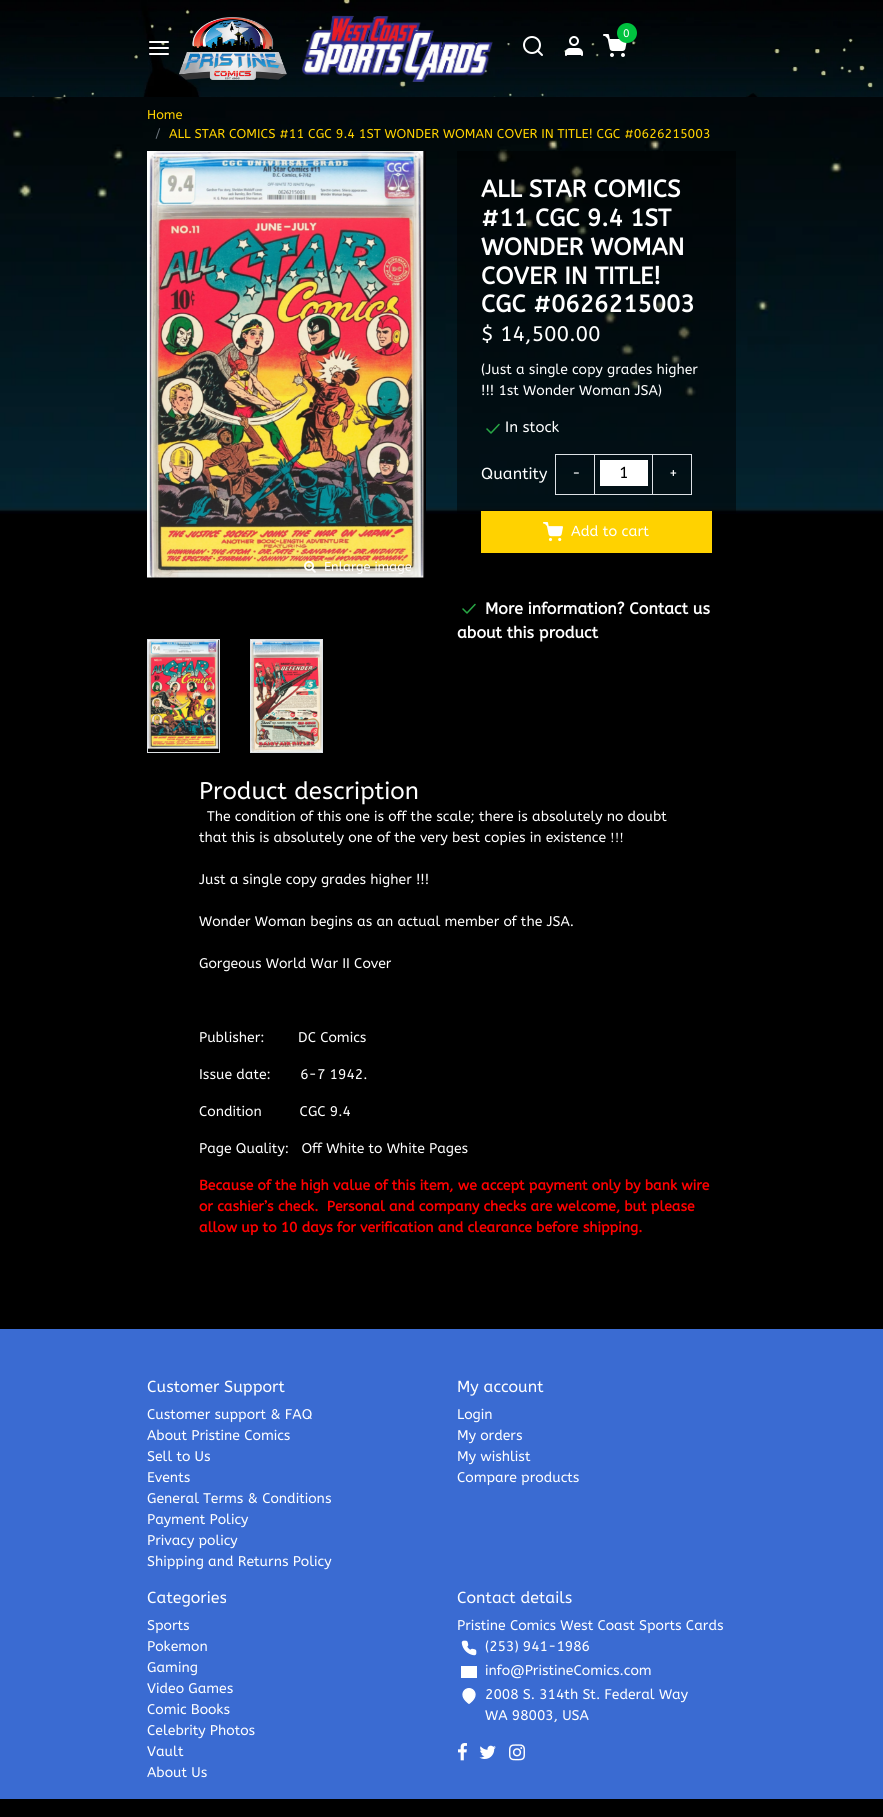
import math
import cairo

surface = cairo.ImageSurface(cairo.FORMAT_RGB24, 883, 1817)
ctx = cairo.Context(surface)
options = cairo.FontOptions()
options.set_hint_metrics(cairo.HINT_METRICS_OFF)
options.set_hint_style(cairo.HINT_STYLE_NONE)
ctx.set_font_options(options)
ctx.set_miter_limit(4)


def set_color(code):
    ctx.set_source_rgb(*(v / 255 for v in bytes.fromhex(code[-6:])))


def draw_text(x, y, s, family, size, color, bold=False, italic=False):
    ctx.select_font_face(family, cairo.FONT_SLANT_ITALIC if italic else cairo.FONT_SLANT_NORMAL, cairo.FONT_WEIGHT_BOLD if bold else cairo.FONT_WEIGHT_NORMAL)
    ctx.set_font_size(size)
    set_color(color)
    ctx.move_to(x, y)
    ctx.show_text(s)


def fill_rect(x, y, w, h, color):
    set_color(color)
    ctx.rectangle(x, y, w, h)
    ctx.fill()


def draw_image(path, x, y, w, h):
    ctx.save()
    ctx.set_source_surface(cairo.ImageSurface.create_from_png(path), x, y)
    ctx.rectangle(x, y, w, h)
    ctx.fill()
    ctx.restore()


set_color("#000000")
ctx.paint()
draw_image("assets/img1.png", 0, 0, 883, 97)
ctx.new_path()
ctx.move_to(150, 48)
ctx.line_to(168, 48)
ctx.move_to(150, 42)
ctx.line_to(168, 42)
ctx.move_to(150, 54)
ctx.line_to(168, 54)
set_color("#ffffff")
ctx.set_line_cap(cairo.LINE_CAP_ROUND)
ctx.set_line_join(cairo.LINE_JOIN_ROUND)
ctx.stroke()
draw_image("assets/img2.png", 179, 17, 108, 63)
draw_image("assets/img3.png", 302, 15, 191, 67)
draw_image("assets/img4.png", 603, 34, 24, 23)
set_color("#00c23f")
ctx.arc(627, 33, 10, 0, 2 * math.pi)
ctx.fill()
draw_text(623, 37, "0", "ABeeZee", 11, "#ffffff")
ctx.new_path()
ctx.arc(532, 45, 8, 0, 2 * math.pi)
ctx.set_line_cap(cairo.LINE_CAP_BUTT)
ctx.set_line_join(cairo.LINE_JOIN_MITER)
ctx.stroke()
ctx.new_path()
ctx.move_to(542, 55)
ctx.line_to(537.5, 50.5)
ctx.set_line_cap(cairo.LINE_CAP_ROUND)
ctx.set_line_join(cairo.LINE_JOIN_ROUND)
ctx.stroke()
draw_image("assets/img5.png", 565, 36, 18, 20)
draw_image("assets/img6.png", 0, 97, 883, 417)
draw_text(147, 119, "Home", "ABeeZee", 12.8, "#ffd200")
draw_text(155, 138, "/", "ABeeZee", 12.8, "#6c757d")
draw_text(169, 138, "ALL STAR COMICS #11 CGC 9.4 1ST WONDER WOMAN COVER IN TITLE! CGC #0626215003", "ABeeZee", 12.8, "#ffd200")
draw_image("assets/img7.png", 147, 151, 279, 427)
draw_image("assets/img8.png", 304, 561, 12, 12)
draw_text(324, 571, "Enlarge image", "ABeeZee", 12.8, "#ffffff")
ctx.rectangle(147.5, 639.5, 72, 113)
set_color("#dee2e6")
ctx.set_line_width(1)
ctx.set_line_cap(cairo.LINE_CAP_BUTT)
ctx.set_line_join(cairo.LINE_JOIN_MITER)
ctx.stroke()
draw_image("assets/img9.png", 148, 640, 71, 109)
ctx.rectangle(250.5, 639.5, 72, 113)
ctx.stroke()
draw_image("assets/img10.png", 251, 640, 71, 112)
ctx.set_source_rgba(0, 0, 0, 0.5)
ctx.rectangle(457, 151, 279, 362)
ctx.fill()
draw_text(481, 197, "ALL STAR COMICS", "ABeeZee", 24, "#ffffff", bold=True)
draw_text(481, 226, "#11 CGC 9.4 1ST", "ABeeZee", 24, "#ffffff", bold=True)
draw_text(481, 255, "WONDER WOMAN", "ABeeZee", 24, "#ffffff", bold=True)
draw_text(481, 284, "COVER IN TITLE!", "ABeeZee", 24, "#ffffff", bold=True)
draw_text(481, 312, "CGC #0626215003", "ABeeZee", 24, "#ffffff", bold=True)
draw_text(481, 341, "$ 14,500.00", "ABeeZee", 21, "#ffffff")
draw_text(481, 374, "(Just a single copy grades higher", "ABeeZee", 14, "#ffffff")
draw_text(481, 395, "!!! 1st Wonder Woman JSA)", "ABeeZee", 14, "#ffffff")
ctx.new_path()
ctx.move_to(499, 424.5)
ctx.line_to(491, 433)
ctx.line_to(487, 429)
set_color("#28a745")
ctx.set_line_width(1.5)
ctx.set_line_cap(cairo.LINE_CAP_ROUND)
ctx.set_line_join(cairo.LINE_JOIN_ROUND)
ctx.stroke()
draw_text(505, 432, "In stock", "ABeeZee", 15, "#ffffff")
draw_text(481, 479, "Quantity", "ABeeZee", 16, "#ffffff")
ctx.rectangle(555.5, 454.5, 136, 40)
set_color("#dee2e6")
ctx.set_line_width(1)
ctx.set_line_cap(cairo.LINE_CAP_BUTT)
ctx.set_line_join(cairo.LINE_JOIN_MITER)
ctx.stroke()
fill_rect(594, 455, 1, 39, "#dee2e6")
draw_text(572, 478, "-", "ABeeZee", 14.5, "#ffffff")
fill_rect(600, 460, 48, 26, "#ffffff")
draw_text(619, 478, "1", "ABeeZee", 16, "#000000")
fill_rect(652, 455, 1, 39, "#dee2e6")
draw_text(669, 478, "+", "ABeeZee", 14.5, "#ffffff")
fill_rect(481, 511, 231, 42, "#ffd200")
draw_image("assets/img11.png", 543, 522, 20, 20)
draw_text(571, 536, "Add to cart", "ABeeZee", 14.5, "#ffffff")
ctx.new_path()
ctx.move_to(475, 604.5)
ctx.line_to(467, 613)
ctx.line_to(463, 609)
set_color("#28a745")
ctx.set_line_width(1.5)
ctx.set_line_cap(cairo.LINE_CAP_ROUND)
ctx.set_line_join(cairo.LINE_JOIN_ROUND)
ctx.stroke()
draw_text(485, 614, "More information? Contact us", "ABeeZee", 16, "#ffffff", bold=True)
draw_text(457, 638, "about this product", "ABeeZee", 16, "#ffffff", bold=True)
draw_text(199, 799, "Product description", "ABeeZee", 24, "#ffffff")
draw_text(207, 821, "The condition of this one is off the scale; there is absolutely no doubt", "ABeeZee", 14, "#ffffff")
draw_text(199, 842, "that this is absolutely one of the very best copies in existence", "ABeeZee", 14, "#ffffff")
draw_text(610, 842, "!!!", "Liberation Serif", 14, "#ffffff")
draw_text(199, 884, "Just a single copy grades higher !!!", "ABeeZee", 14, "#ffffff")
draw_text(199, 926, "Wonder Woman begins as an actual member of the JSA.", "ABeeZee", 14, "#ffffff")
draw_text(199, 968, "Gorgeous World War II Cover", "ABeeZee", 14, "#ffffff")
draw_text(199, 1042, "Publisher:        DC Comics", "ABeeZee", 14, "#ffffff")
draw_text(199, 1079, "Issue date:       6-7 1942.", "ABeeZee", 14, "#ffffff")
draw_text(199, 1116, "Condition         CGC 9.4", "ABeeZee", 14, "#ffffff")
draw_text(199, 1153, "Page Quality:   Off White to White Pages", "ABeeZee", 14, "#ffffff")
draw_text(199, 1190, "Because of the high value of this item, we accept payment only by bank wire", "ABeeZee", 14, "#ff0000", bold=True)
draw_text(199, 1211, "or cashier’s check.  Personal and company checks are welcome, but please", "ABeeZee", 14, "#ff0000", bold=True)
draw_text(199, 1232, "allow up to 10 days for verification and clearance before shipping.", "ABeeZee", 14, "#ff0000", bold=True)
fill_rect(0, 1329, 883, 470, "#3a6bd2")
draw_text(147, 1392, "Customer Support", "ABeeZee", 16, "#ffffff")
draw_text(147, 1419, "Customer support & FAQ", "ABeeZee", 14, "#ffffff")
draw_text(147, 1440, "About Pristine Comics", "ABeeZee", 14, "#ffffff")
draw_text(147, 1461, "Sell to Us", "ABeeZee", 14, "#ffffff")
draw_text(147, 1482, "Events", "ABeeZee", 14, "#ffffff")
draw_text(147, 1503, "General Terms & Conditions", "ABeeZee", 14, "#ffffff")
draw_text(147, 1524, "Payment Policy", "ABeeZee", 14, "#ffffff")
draw_text(147, 1545, "Privacy policy", "ABeeZee", 14, "#ffffff")
draw_text(147, 1566, "Shipping and Returns Policy", "ABeeZee", 14, "#ffffff")
draw_text(457, 1392, "My account", "ABeeZee", 16, "#ffffff")
draw_text(457, 1419, "Login", "ABeeZee", 14, "#ffffff")
draw_text(457, 1440, "My orders", "ABeeZee", 14, "#ffffff")
draw_text(457, 1461, "My wishlist", "ABeeZee", 14, "#ffffff")
draw_text(457, 1482, "Compare products", "ABeeZee", 14, "#ffffff")
draw_text(147, 1603, "Categories", "ABeeZee", 16, "#ffffff")
draw_text(147, 1630, "Sports", "ABeeZee", 14, "#ffffff")
draw_text(147, 1651, "Pokemon", "ABeeZee", 14, "#ffffff")
draw_text(147, 1672, "Gaming", "ABeeZee", 14, "#ffffff")
draw_text(147, 1693, "Video Games", "ABeeZee", 14, "#ffffff")
draw_text(147, 1714, "Comic Books", "ABeeZee", 14, "#ffffff")
draw_text(147, 1735, "Celebrity Photos", "ABeeZee", 14, "#ffffff")
draw_text(147, 1756, "Vault", "ABeeZee", 14, "#ffffff")
draw_text(147, 1777, "About Us", "ABeeZee", 14, "#ffffff")
draw_text(457, 1603, "Contact details", "ABeeZee", 16, "#ffffff")
draw_text(457, 1630, "Pristine Comics West Coast Sports Cards", "ABeeZee", 14, "#ffffff")
draw_image("assets/img12.png", 461, 1640, 16, 16)
draw_text(485, 1651, "(253) 941-1986", "ABeeZee", 14, "#ffffff")
fill_rect(461, 1666, 16, 12, "#ffffff")
draw_text(485, 1675, "info@PristineComics.com", "ABeeZee", 14, "#ffffff")
draw_image("assets/img13.png", 462, 1688, 14, 16)
draw_text(485, 1699, "2008 S. 314th St. Federal Way", "ABeeZee", 14, "#ffffff")
draw_text(485, 1720, "WA 98003, USA", "ABeeZee", 14, "#ffffff")
draw_image("assets/img14.png", 458, 1743, 9, 18)
draw_image("assets/img15.png", 479, 1745, 17, 14)
draw_image("assets/img16.png", 509, 1744, 16, 17)
surface.write_to_png("output.png")
